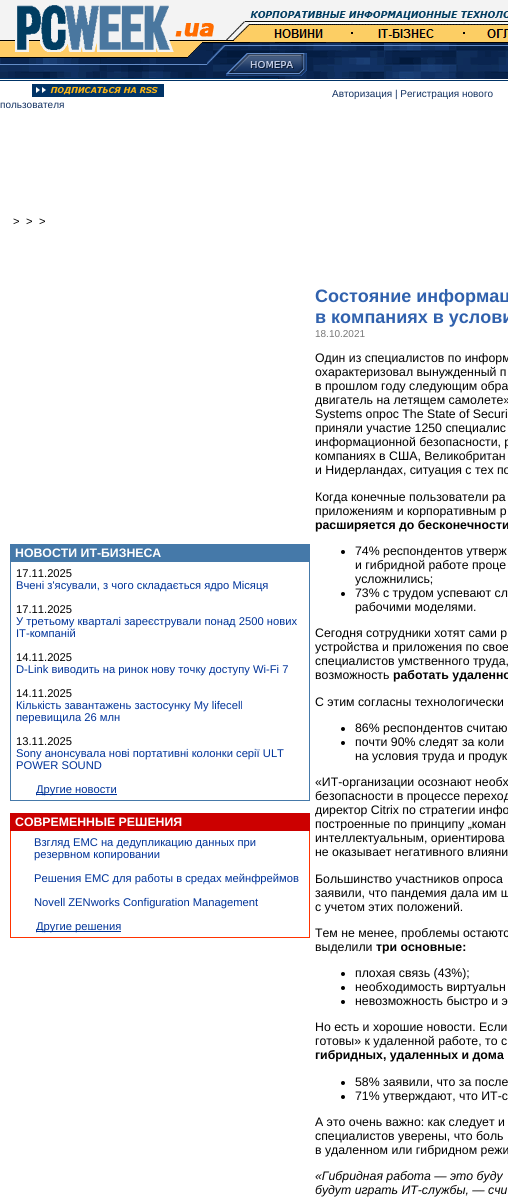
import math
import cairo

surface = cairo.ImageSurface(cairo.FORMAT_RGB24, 508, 1204)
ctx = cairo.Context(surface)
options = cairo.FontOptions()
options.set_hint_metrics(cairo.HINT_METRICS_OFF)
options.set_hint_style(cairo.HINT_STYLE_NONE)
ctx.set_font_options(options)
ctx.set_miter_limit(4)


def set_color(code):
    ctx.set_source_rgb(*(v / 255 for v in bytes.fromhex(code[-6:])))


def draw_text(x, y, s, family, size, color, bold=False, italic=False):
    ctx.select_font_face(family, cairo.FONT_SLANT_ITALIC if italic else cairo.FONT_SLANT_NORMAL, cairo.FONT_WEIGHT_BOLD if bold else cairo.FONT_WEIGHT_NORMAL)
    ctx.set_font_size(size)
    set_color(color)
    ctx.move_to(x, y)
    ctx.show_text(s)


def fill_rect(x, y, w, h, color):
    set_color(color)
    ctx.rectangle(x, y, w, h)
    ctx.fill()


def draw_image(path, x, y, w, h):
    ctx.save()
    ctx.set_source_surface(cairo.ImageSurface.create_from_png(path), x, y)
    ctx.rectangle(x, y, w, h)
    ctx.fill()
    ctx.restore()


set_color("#ffffff")
ctx.paint()
draw_image("assets/img1.png", 0, 0, 508, 81)
draw_image("assets/img2.png", 0, 5, 226, 53)
draw_image("assets/img3.png", 250, 11, 258, 9)
draw_image("assets/img4.png", 226, 21, 24, 22)
draw_image("assets/img5.png", 250, 21, 101, 22)
draw_image("assets/img6.png", 351, 21, 2, 22)
draw_image("assets/img7.png", 353, 21, 110, 22)
draw_image("assets/img6.png", 463, 21, 2, 22)
draw_image("assets/img8.png", 465, 21, 43, 22)
draw_image("assets/img9.png", 226, 53, 81, 23)
draw_image("assets/img10.png", 32, 84, 132, 13)
draw_text(332, 97, "Авторизация | Регистрация нового", "Liberation Sans", 10, "#113060")
draw_text(0, 108, "пользователя", "Liberation Sans", 10, "#113060")
draw_text(13, 225, ">", "Liberation Sans", 11.2, "#000000")
draw_text(26, 225, ">", "Liberation Sans", 11.2, "#000000")
draw_text(39, 225, ">", "Liberation Sans", 11.2, "#000000")
fill_rect(10, 544, 300, 18, "#4579a9")
draw_text(15, 557, "НОВОСТИ ИТ-БИЗНЕСА", "Liberation Sans", 12.3, "#ffffff", bold=True)
fill_rect(309, 562, 1, 239, "#4579a9")
fill_rect(10, 800, 300, 1, "#4579a9")
fill_rect(10, 562, 1, 239, "#4579a9")
draw_text(16, 577, "17.11.2025", "Liberation Sans", 11.2, "#000000")
draw_text(16, 589, "Вчені з'ясували, з чого складається ядро Місяця", "Liberation Sans", 11.2, "#003399")
draw_text(16, 613, "17.11.2025", "Liberation Sans", 11.2, "#000000")
draw_text(16, 625, "У третьому кварталі зареєстрували понад 2500 нових", "Liberation Sans", 11.2, "#003399")
draw_text(16, 637, "ІТ-компаній", "Liberation Sans", 11.2, "#003399")
draw_text(16, 661, "14.11.2025", "Liberation Sans", 11.2, "#000000")
draw_text(16, 673, "D-Link виводить на ринок нову точку доступу Wi-Fi 7", "Liberation Sans", 11.2, "#003399")
draw_text(16, 697, "14.11.2025", "Liberation Sans", 11.2, "#000000")
draw_text(16, 709, "Кількість завантажень застосунку My lifecell", "Liberation Sans", 11.2, "#003399")
draw_text(16, 721, "перевищила 26 млн", "Liberation Sans", 11.2, "#003399")
draw_text(16, 745, "13.11.2025", "Liberation Sans", 11.2, "#000000")
draw_text(16, 757, "Sony анонсувала нові портативні колонки серії ULT", "Liberation Sans", 11.2, "#003399")
draw_text(16, 769, "POWER SOUND", "Liberation Sans", 11.2, "#003399")
fill_rect(36, 794, 81, 1, "#003399")
draw_text(36, 793, "Другие новости", "Liberation Sans", 11.2, "#003399")
fill_rect(10, 813, 300, 18, "#cc0000")
draw_text(15, 826, "СОВРЕМЕННЫЕ РЕШЕНИЯ", "Liberation Sans", 12.3, "#ffffff", bold=True)
fill_rect(309, 831, 1, 107, "#ff3300")
fill_rect(10, 937, 300, 1, "#ff3300")
fill_rect(10, 831, 1, 107, "#ff3300")
draw_text(34, 846, "Взгляд ЕМС на дедупликацию данных при", "Liberation Sans", 11.2, "#003399")
draw_text(34, 858, "резервном копировании", "Liberation Sans", 11.2, "#003399")
draw_text(34, 882, "Решения EMC для работы в средах мейнфреймов", "Liberation Sans", 11.2, "#003399")
draw_text(34, 906, "Novell ZENworks Configuration Management", "Liberation Sans", 11.2, "#003399")
fill_rect(36, 931, 85, 1, "#003399")
draw_text(36, 930, "Другие решения", "Liberation Sans", 11.2, "#003399")
draw_text(315, 302, "Состояние информац", "Liberation Sans", 18, "#3061ad", bold=True)
draw_text(315, 323, "в компаниях в услови", "Liberation Sans", 18, "#3061ad", bold=True)
draw_text(315, 337, "18.10.2021", "Liberation Sans", 10, "#777777")
draw_text(315, 362, "Один из специалистов по информ", "Liberation Sans", 12.3, "#000000")
draw_text(315, 376, "охарактеризовал вынужденный п", "Liberation Sans", 12.3, "#000000")
draw_text(315, 390, "в прошлом году следующим обра", "Liberation Sans", 12.3, "#000000")
draw_text(315, 404, "двигатель на летящем самолете»", "Liberation Sans", 12.3, "#000000")
draw_text(315, 418, "Systems опрос The State of Securi", "Liberation Sans", 12.3, "#000000")
draw_text(315, 432, "приняли участие 1250 специалис", "Liberation Sans", 12.3, "#000000")
draw_text(315, 446, "информационной безопасности, р", "Liberation Sans", 12.3, "#000000")
draw_text(315, 460, "компаниях в США, Великобритан", "Liberation Sans", 12.3, "#000000")
draw_text(315, 474, "и Нидерландах, ситуация с тех по", "Liberation Sans", 12.3, "#000000")
draw_text(315, 501, "Когда конечные пользователи ра", "Liberation Sans", 12.3, "#000000")
draw_text(315, 515, "приложениям и корпоративным р", "Liberation Sans", 12.3, "#000000")
draw_text(315, 529, "расширяется до бесконечности", "Liberation Sans", 12.3, "#000000", bold=True)
ctx.new_path()
ctx.arc(343, 552, 2, 0, 2 * math.pi)
ctx.fill()
draw_text(355, 555, "74% респондентов утверж", "Liberation Sans", 12.3, "#000000")
draw_text(355, 569, "и гибридной работе проце", "Liberation Sans", 12.3, "#000000")
draw_text(355, 583, "усложнились;", "Liberation Sans", 12.3, "#000000")
ctx.new_path()
ctx.arc(343, 594, 2, 0, 2 * math.pi)
ctx.fill()
draw_text(355, 597, "73% с трудом успевают сл", "Liberation Sans", 12.3, "#000000")
draw_text(355, 611, "рабочими моделями.", "Liberation Sans", 12.3, "#000000")
draw_text(315, 637, "Сегодня сотрудники хотят сами р", "Liberation Sans", 12.3, "#000000")
draw_text(315, 651, "устройства и приложения по свое", "Liberation Sans", 12.3, "#000000")
draw_text(315, 665, "специалистов умственного труда,", "Liberation Sans", 12.3, "#000000")
draw_text(315, 679, "возможность", "Liberation Sans", 12.3, "#000000")
draw_text(393, 679, "работать удаленно", "Liberation Sans", 12.3, "#000000", bold=True)
draw_text(315, 706, "С этим согласны технологически", "Liberation Sans", 12.3, "#000000")
ctx.new_path()
ctx.arc(343, 729, 2, 0, 2 * math.pi)
ctx.fill()
draw_text(355, 732, "86% респондентов считаю", "Liberation Sans", 12.3, "#000000")
ctx.new_path()
ctx.arc(343, 743, 2, 0, 2 * math.pi)
ctx.fill()
draw_text(355, 746, "почти 90% следят за коли", "Liberation Sans", 12.3, "#000000")
draw_text(355, 760, "на условия труда и продук", "Liberation Sans", 12.3, "#000000")
draw_text(315, 786, "«ИТ-организации осознают необх", "Liberation Sans", 12.3, "#000000")
draw_text(315, 800, "безопасности в процессе переход", "Liberation Sans", 12.3, "#000000")
draw_text(315, 814, "директор Citrix по стратегии инфо", "Liberation Sans", 12.3, "#000000")
draw_text(315, 828, "построенные по принципу „коман", "Liberation Sans", 12.3, "#000000")
draw_text(315, 842, "интеллектуальным, ориентирова", "Liberation Sans", 12.3, "#000000")
draw_text(315, 856, "не оказывает негативного влияни", "Liberation Sans", 12.3, "#000000")
draw_text(315, 883, "Большинство участников опроса", "Liberation Sans", 12.3, "#000000")
draw_text(315, 897, "заявили, что пандемия дала им ш", "Liberation Sans", 12.3, "#000000")
draw_text(315, 911, "с учетом этих положений.", "Liberation Sans", 12.3, "#000000")
draw_text(315, 937, "Тем не менее, проблемы остаютс", "Liberation Sans", 12.3, "#000000")
draw_text(315, 951, "выделили", "Liberation Sans", 12.3, "#000000")
draw_text(376, 951, "три основные:", "Liberation Sans", 12.3, "#000000", bold=True)
ctx.new_path()
ctx.arc(343, 974, 2, 0, 2 * math.pi)
ctx.fill()
draw_text(355, 977, "плохая связь (43%);", "Liberation Sans", 12.3, "#000000")
ctx.new_path()
ctx.arc(343, 988, 2, 0, 2 * math.pi)
ctx.fill()
draw_text(355, 991, "необходимость виртуальн", "Liberation Sans", 12.3, "#000000")
ctx.new_path()
ctx.arc(343, 1002, 2, 0, 2 * math.pi)
ctx.fill()
draw_text(355, 1005, "невозможность быстро и э", "Liberation Sans", 12.3, "#000000")
draw_text(315, 1031, "Но есть и хорошие новости. Если", "Liberation Sans", 12.3, "#000000")
draw_text(315, 1045, "готовы» к удаленной работе, то с", "Liberation Sans", 12.3, "#000000")
draw_text(315, 1059, "гибридных, удаленных и дома", "Liberation Sans", 12.3, "#000000", bold=True)
ctx.new_path()
ctx.arc(343, 1083, 2, 0, 2 * math.pi)
ctx.fill()
draw_text(355, 1086, "58% заявили, что за после", "Liberation Sans", 12.3, "#000000")
ctx.new_path()
ctx.arc(343, 1097, 2, 0, 2 * math.pi)
ctx.fill()
draw_text(355, 1100, "71% утверждают, что ИТ-с", "Liberation Sans", 12.3, "#000000")
draw_text(315, 1126, "А это очень важно: как следует и", "Liberation Sans", 12.3, "#000000")
draw_text(315, 1140, "специалистов уверены, что боль", "Liberation Sans", 12.3, "#000000")
draw_text(315, 1154, "в удаленном или гибридном режи", "Liberation Sans", 12.3, "#000000")
draw_text(315, 1180, "«Гибридная работа — это буду", "Liberation Sans", 12.3, "#000000", italic=True)
draw_text(315, 1194, "будут играть ИТ-службы, — счи", "Liberation Sans", 12.3, "#000000", italic=True)
surface.write_to_png("output.png")
